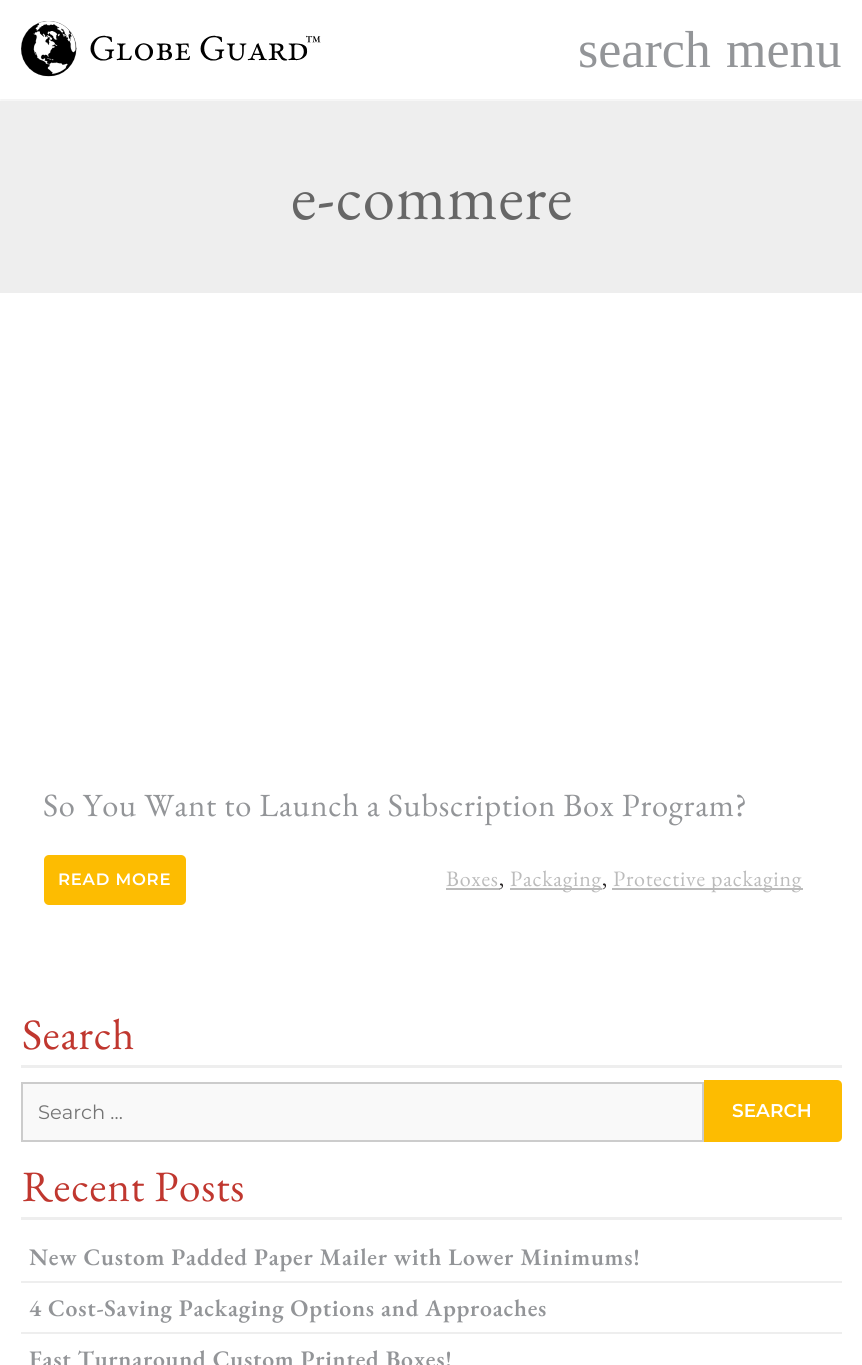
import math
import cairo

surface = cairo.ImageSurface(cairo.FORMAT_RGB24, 862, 1365)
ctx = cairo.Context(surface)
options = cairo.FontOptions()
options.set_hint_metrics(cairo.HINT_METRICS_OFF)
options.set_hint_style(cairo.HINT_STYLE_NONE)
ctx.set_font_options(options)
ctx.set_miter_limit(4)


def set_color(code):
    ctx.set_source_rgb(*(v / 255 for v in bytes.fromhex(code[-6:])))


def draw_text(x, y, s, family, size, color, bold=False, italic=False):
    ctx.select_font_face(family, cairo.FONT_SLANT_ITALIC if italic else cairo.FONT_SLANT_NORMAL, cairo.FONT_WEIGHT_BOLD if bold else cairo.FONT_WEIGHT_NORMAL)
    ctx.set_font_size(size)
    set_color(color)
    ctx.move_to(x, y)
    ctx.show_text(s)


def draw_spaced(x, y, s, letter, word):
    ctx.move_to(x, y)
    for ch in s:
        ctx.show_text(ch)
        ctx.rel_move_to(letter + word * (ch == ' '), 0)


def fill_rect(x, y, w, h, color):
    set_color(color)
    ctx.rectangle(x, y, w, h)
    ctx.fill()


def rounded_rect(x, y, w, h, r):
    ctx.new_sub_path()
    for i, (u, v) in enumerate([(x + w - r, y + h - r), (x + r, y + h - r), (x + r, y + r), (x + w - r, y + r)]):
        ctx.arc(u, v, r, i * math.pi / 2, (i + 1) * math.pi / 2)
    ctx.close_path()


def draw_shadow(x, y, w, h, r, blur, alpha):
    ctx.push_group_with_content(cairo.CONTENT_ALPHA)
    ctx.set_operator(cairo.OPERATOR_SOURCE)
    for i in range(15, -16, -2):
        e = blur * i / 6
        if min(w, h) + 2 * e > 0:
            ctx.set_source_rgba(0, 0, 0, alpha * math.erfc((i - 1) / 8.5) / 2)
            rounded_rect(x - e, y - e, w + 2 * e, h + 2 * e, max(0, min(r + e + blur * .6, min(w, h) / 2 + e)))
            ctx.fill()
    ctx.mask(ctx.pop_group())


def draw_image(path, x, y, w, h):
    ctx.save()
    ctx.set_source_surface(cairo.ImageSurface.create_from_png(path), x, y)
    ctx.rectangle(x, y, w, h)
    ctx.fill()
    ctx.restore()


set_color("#ffffff")
ctx.paint()
fill_rect(0, 101, 862, 192, "#eeeeee")
ctx.save()
ctx.rectangle(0, 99, 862, 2)
ctx.clip()
set_color("#000000")
draw_shadow(0, 2, 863, 99, 0, 1, 0.05)
ctx.restore()
draw_image("assets/img1.png", 21, 21, 300, 56)
draw_text(578, 67, "search", "Liberation Serif", 52, "#939598")
draw_text(726, 67, "menu", "Liberation Serif", 52, "#939598")
ctx.select_font_face("EB Garamond")
ctx.set_font_size(65)
set_color("#666666")
draw_spaced(291, 219, "e-commere", 0.75, 0)
ctx.set_font_size(32.4)
set_color("#939598")
draw_spaced(43, 816, "So You Want to Launch a Subscription Box Program?", 0.75, 0)
set_color("#fdbc01")
rounded_rect(44, 855, 142, 50, 5)
ctx.fill()
ctx.select_font_face("Montserrat SemiBold")
ctx.set_font_size(16.5)
set_color("#ffffff")
draw_spaced(58, 885, "READ MORE", 0.75, 0)
ctx.select_font_face("EB Garamond")
ctx.set_font_size(22)
set_color("#bbbbbb")
draw_spaced(446, 886, "Boxes", 0.75, 0)
fill_rect(446, 888, 54, 2, "#bbbbbb")
set_color("#231f20")
draw_spaced(499, 886, ",", 0.75, 0)
fill_rect(510, 888, 92, 2, "#bbbbbb")
draw_spaced(510, 886, "Packaging", 0.75, 0)
set_color("#231f20")
draw_spaced(602, 886, ",", 0.75, 0)
fill_rect(612, 888, 191, 2, "#bbbbbb")
draw_spaced(613, 886, "Protective packaging", 0.75, 0)
fill_rect(21, 1065, 821, 3, "#eeeeee")
ctx.set_font_size(43.25)
set_color("#c0372f")
draw_spaced(22, 1049, "Search", 0.75, 0)
set_color("#f9f9f9")
ctx.rectangle(22, 1083, 681, 58)
ctx.fill_preserve()
set_color("#cccccc")
ctx.stroke()
draw_text(38, 1119, "Search …", "Montserrat", 19.5, "#757575")
set_color("#fdbc01")
ctx.new_path()
ctx.move_to(704, 1080)
ctx.line_to(837, 1080)
ctx.curve_to(840, 1080, 842, 1082, 842, 1085)
ctx.line_to(842, 1137)
ctx.curve_to(842, 1140, 840, 1142, 837, 1142)
ctx.line_to(704, 1142)
ctx.close_path()
ctx.fill()
draw_text(732, 1117, "SEARCH", "Montserrat SemiBold", 18.5, "#ffffff")
fill_rect(21, 1217, 821, 3, "#eeeeee")
ctx.select_font_face("EB Garamond")
ctx.set_font_size(43.25)
set_color("#c0372f")
draw_spaced(22, 1201, "Recent Posts", 0.75, 0)
fill_rect(21, 1281, 821, 2, "#eeeeee")
ctx.select_font_face("EB Garamond SemiBold")
ctx.set_font_size(23.75)
set_color("#939598")
draw_spaced(29, 1265, "New Custom Padded Paper Mailer with Lower Minimums!", 0.75, 0)
fill_rect(21, 1332, 821, 2, "#eeeeee")
set_color("#939598")
draw_spaced(29, 1316, "4 Cost-Saving Packaging Options and Approaches", 0.75, 0)
draw_spaced(29, 1367, "Fast Turnaround Custom Printed Boxes!", 0.75, 0)
surface.write_to_png("output.png")
